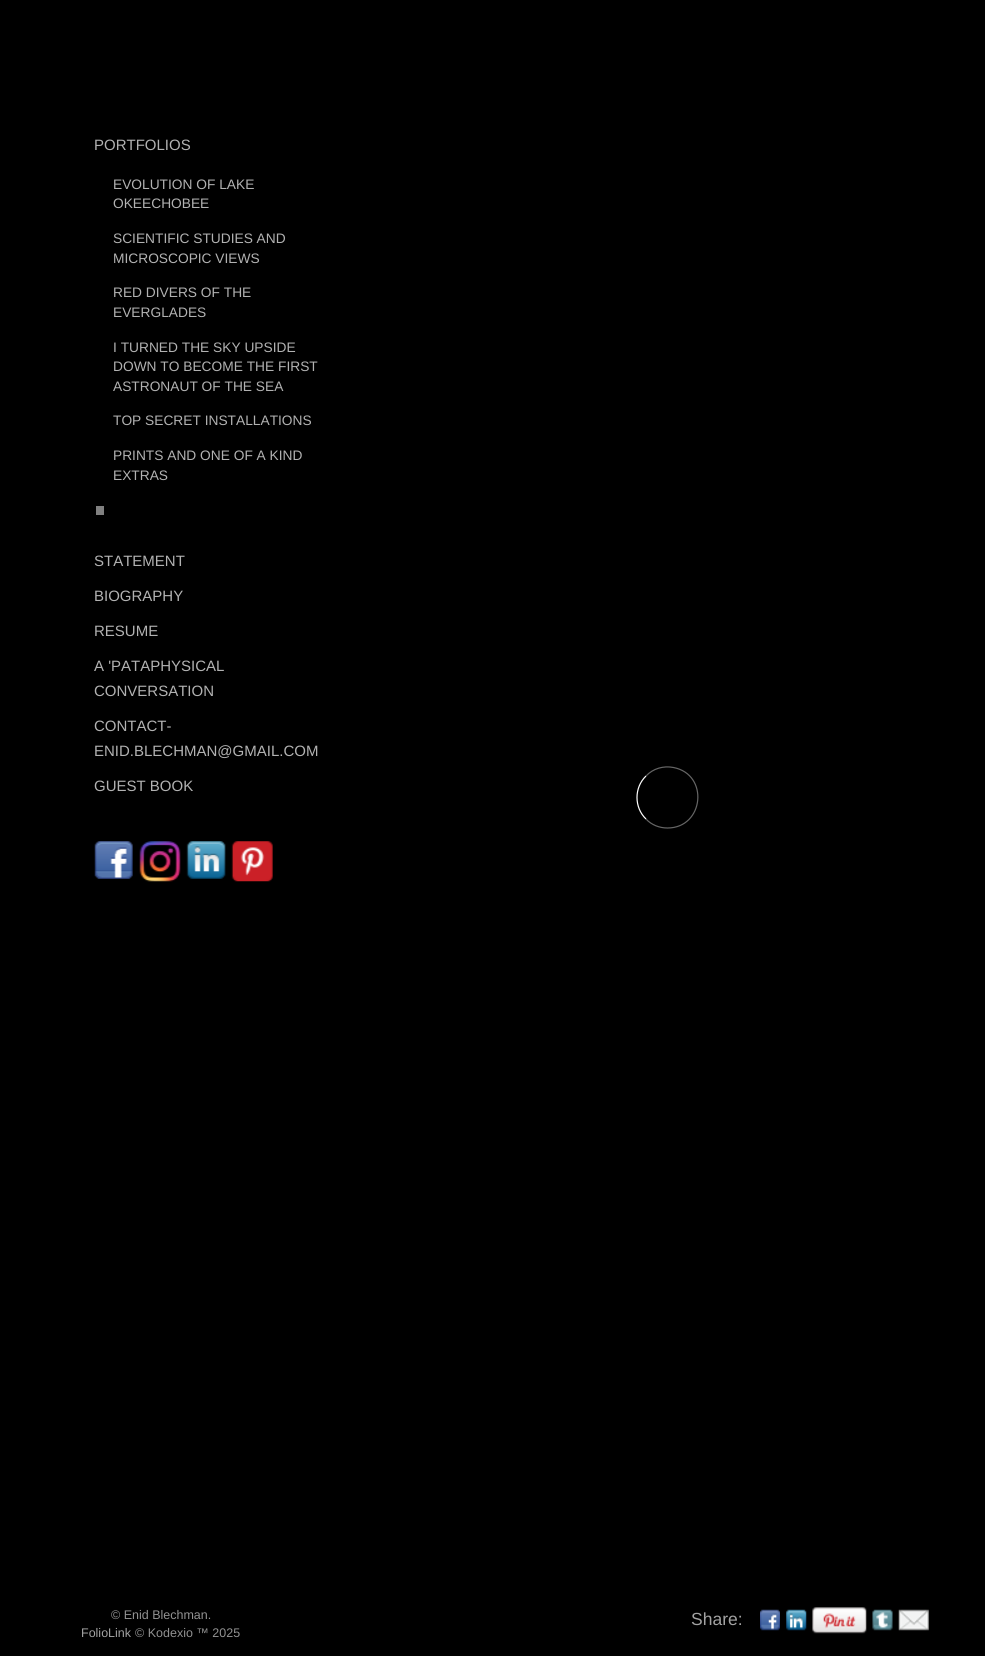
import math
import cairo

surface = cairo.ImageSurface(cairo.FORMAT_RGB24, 985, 1656)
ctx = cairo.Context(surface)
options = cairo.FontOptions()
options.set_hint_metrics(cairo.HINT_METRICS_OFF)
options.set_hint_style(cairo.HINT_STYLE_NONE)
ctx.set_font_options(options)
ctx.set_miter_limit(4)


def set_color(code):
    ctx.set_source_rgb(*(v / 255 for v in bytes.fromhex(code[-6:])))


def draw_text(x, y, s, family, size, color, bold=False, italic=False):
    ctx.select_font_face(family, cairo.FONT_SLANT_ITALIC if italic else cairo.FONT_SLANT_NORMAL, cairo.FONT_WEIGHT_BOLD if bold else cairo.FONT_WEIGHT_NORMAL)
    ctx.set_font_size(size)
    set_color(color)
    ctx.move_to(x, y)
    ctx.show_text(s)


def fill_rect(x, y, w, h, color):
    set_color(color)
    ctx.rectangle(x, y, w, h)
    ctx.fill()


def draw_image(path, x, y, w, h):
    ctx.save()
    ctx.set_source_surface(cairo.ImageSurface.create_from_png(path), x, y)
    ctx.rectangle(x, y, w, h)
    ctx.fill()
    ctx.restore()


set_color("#000000")
ctx.paint()
draw_text(94, 150, "PORTFOLIOS", "Liberation Sans", 15, "#b2b2b2")
draw_text(113, 189, "EVOLUTION OF LAKE", "Liberation Sans", 13.75, "#b2b2b2")
draw_text(113, 208, "OKEECHOBEE", "Liberation Sans", 13.75, "#b2b2b2")
draw_text(113, 243, "SCIENTIFIC STUDIES AND", "Liberation Sans", 13.75, "#b2b2b2")
draw_text(113, 263, "MICROSCOPIC VIEWS", "Liberation Sans", 13.75, "#b2b2b2")
draw_text(113, 297, "RED DIVERS OF THE", "Liberation Sans", 13.75, "#b2b2b2")
draw_text(113, 317, "EVERGLADES", "Liberation Sans", 13.75, "#b2b2b2")
draw_text(113, 352, "I TURNED THE SKY UPSIDE", "Liberation Sans", 13.75, "#b2b2b2")
draw_text(113, 371, "DOWN TO BECOME THE FIRST", "Liberation Sans", 13.75, "#b2b2b2")
draw_text(113, 391, "ASTRONAUT OF THE SEA", "Liberation Sans", 13.75, "#b2b2b2")
draw_text(113, 425, "TOP SECRET INSTALLATIONS", "Liberation Sans", 13.75, "#b2b2b2")
draw_text(113, 460, "PRINTS AND ONE OF A KIND", "Liberation Sans", 13.75, "#b2b2b2")
draw_text(113, 480, "EXTRAS", "Liberation Sans", 13.75, "#b2b2b2")
fill_rect(96, 506, 8, 9, "#808080")
draw_text(94, 566, "STATEMENT", "Liberation Sans", 15, "#b2b2b2")
draw_text(94, 601, "BIOGRAPHY", "Liberation Sans", 15, "#b2b2b2")
draw_text(94, 636, "RESUME", "Liberation Sans", 15, "#b2b2b2")
draw_text(94, 671, "A 'PATAPHYSICAL", "Liberation Sans", 15, "#b2b2b2")
draw_text(94, 696, "CONVERSATION", "Liberation Sans", 15, "#b2b2b2")
draw_text(94, 731, "CONTACT-", "Liberation Sans", 15, "#b2b2b2")
draw_text(94, 756, "ENID.BLECHMAN@GMAIL.COM", "Liberation Sans", 15, "#b2b2b2")
draw_text(94, 791, "GUEST BOOK", "Liberation Sans", 15, "#b2b2b2")
draw_image("assets/img1.png", 94, 841, 39, 38)
draw_image("assets/img2.png", 139, 841, 42, 41)
draw_image("assets/img3.png", 186, 841, 40, 38)
draw_image("assets/img4.png", 231, 841, 42, 41)
ctx.new_path()
ctx.move_to(646, 776)
ctx.curve_to(653, 768.5, 663.5, 765.5, 673.5, 767.5)
ctx.curve_to(709.5, 774.5, 704, 828, 667.5, 828)
ctx.curve_to(659.5, 828, 651.5, 825, 646, 819)
set_color("#666666")
ctx.set_line_width(1.2)
ctx.stroke()
ctx.new_path()
ctx.move_to(646, 819)
ctx.curve_to(634, 807.5, 634, 787.5, 646, 776)
set_color("#ffffff")
ctx.stroke()
draw_text(111, 1619, "© Enid Blechman.", "Liberation Sans", 12.5, "#929292")
draw_text(81, 1637, "FolioLink", "Liberation Sans", 12.5, "#a2a2a2")
draw_text(135, 1637, "© Kodexio ™ 2025", "Liberation Sans", 12.5, "#929292")
draw_text(691, 1625, "Share:", "Liberation Sans", 17.5, "#a2a2a2")
draw_image("assets/img5.png", 760, 1609, 20, 22)
draw_image("assets/img6.png", 786, 1609, 21, 22)
draw_image("assets/img7.png", 812, 1607, 55, 27)
draw_image("assets/img8.png", 872, 1609, 21, 22)
draw_image("assets/img9.png", 898, 1609, 31, 22)
surface.write_to_png("output.png")
